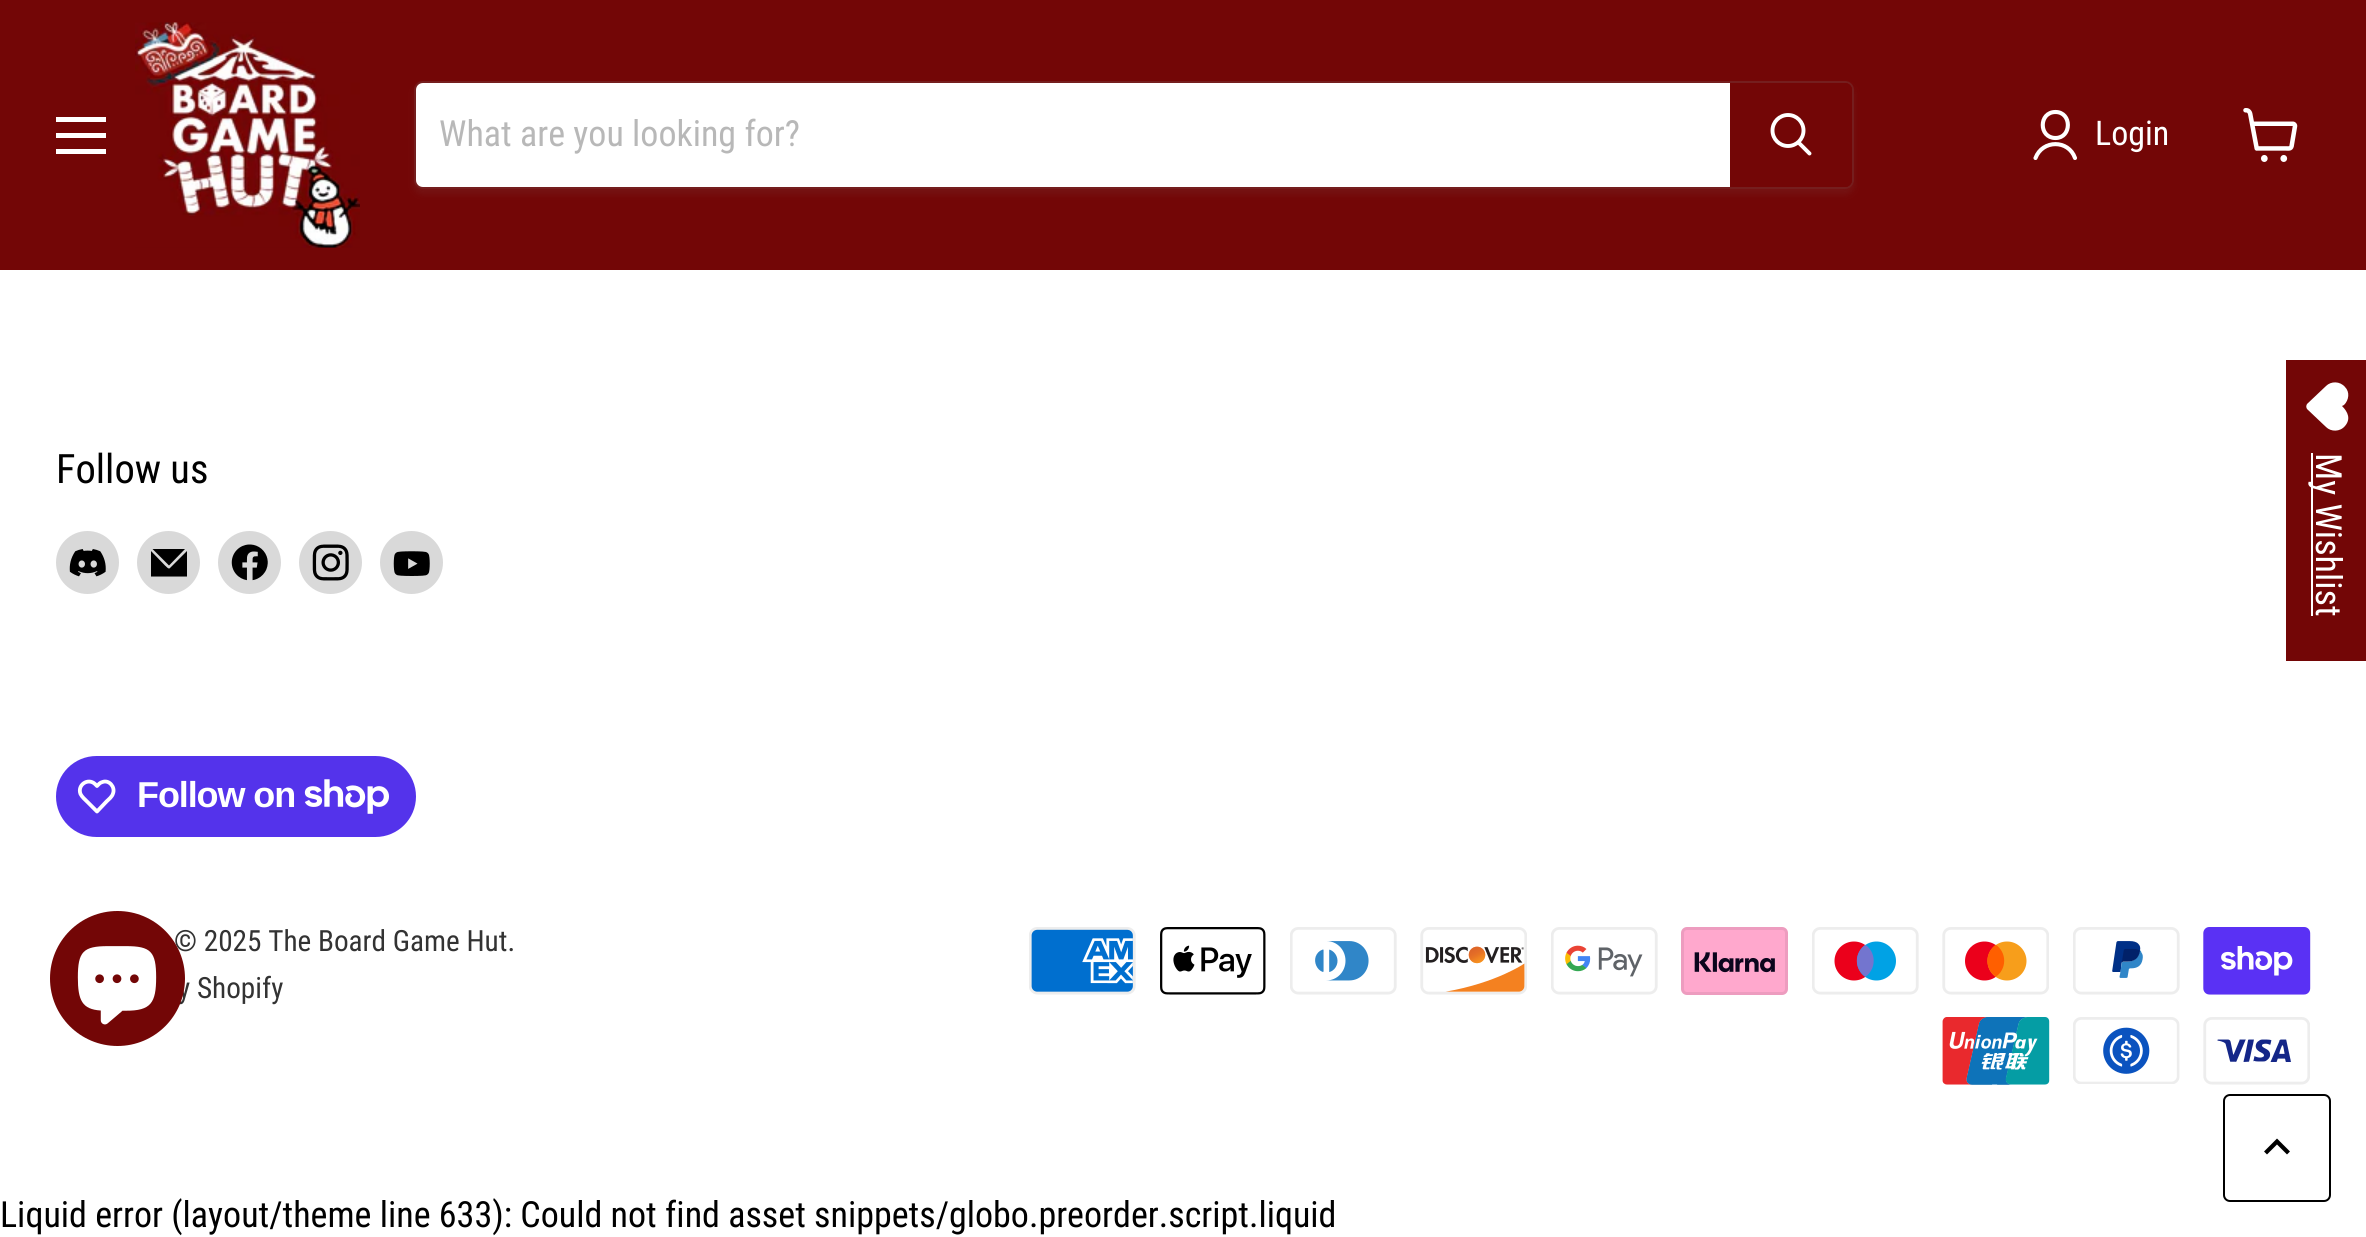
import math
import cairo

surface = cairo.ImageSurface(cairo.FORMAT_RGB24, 2366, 1237)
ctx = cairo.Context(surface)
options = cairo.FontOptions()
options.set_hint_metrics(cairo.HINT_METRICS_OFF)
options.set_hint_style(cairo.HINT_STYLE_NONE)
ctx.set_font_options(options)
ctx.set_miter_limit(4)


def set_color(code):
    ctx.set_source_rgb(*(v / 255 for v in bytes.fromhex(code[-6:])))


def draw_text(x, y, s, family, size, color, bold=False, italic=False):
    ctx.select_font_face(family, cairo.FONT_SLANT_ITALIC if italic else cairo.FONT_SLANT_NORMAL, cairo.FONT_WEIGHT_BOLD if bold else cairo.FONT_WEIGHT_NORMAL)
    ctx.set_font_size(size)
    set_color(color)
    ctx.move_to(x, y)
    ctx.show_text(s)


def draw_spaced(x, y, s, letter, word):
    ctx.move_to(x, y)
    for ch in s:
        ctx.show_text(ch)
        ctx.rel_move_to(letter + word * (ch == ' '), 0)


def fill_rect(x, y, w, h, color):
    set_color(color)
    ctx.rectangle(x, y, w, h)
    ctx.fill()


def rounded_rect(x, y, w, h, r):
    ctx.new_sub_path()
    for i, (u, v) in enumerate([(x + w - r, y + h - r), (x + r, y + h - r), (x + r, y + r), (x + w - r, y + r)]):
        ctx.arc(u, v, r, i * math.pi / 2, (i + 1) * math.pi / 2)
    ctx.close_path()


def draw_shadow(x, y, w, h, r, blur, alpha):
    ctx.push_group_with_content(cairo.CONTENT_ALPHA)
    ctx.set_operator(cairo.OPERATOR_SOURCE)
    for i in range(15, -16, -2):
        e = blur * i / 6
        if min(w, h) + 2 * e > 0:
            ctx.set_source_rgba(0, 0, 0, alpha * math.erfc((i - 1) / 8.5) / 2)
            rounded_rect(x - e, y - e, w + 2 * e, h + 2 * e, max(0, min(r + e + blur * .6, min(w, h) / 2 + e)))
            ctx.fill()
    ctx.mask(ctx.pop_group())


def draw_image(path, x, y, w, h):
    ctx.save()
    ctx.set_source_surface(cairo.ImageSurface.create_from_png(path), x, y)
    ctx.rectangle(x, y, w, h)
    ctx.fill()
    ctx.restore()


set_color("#ffffff")
ctx.paint()
fill_rect(0, 0, 2366, 270, "#730606")
fill_rect(56, 117, 50, 5, "#ffffff")
fill_rect(56, 133, 50, 5, "#ffffff")
fill_rect(56, 149, 50, 5, "#ffffff")
draw_image("assets/img1.png", 135, 22, 225, 226)
ctx.save()
ctx.set_fill_rule(cairo.FILL_RULE_EVEN_ODD)
ctx.new_path()
ctx.move_to(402, 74)
ctx.line_to(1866, 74)
ctx.line_to(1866, 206)
ctx.line_to(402, 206)
ctx.close_path()
ctx.move_to(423, 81)
ctx.line_to(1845, 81)
ctx.curve_to(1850, 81, 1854, 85, 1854, 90)
ctx.line_to(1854, 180)
ctx.curve_to(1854, 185, 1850, 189, 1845, 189)
ctx.line_to(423, 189)
ctx.curve_to(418, 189, 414, 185, 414, 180)
ctx.line_to(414, 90)
ctx.curve_to(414, 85, 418, 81, 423, 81)
ctx.close_path()
ctx.clip()
set_color("#808080")
draw_shadow(414, 86, 1440, 108, 9, 3.5, 0.11)
ctx.restore()
rounded_rect(415, 82, 1438, 106, 8)
ctx.set_source_rgba(0.502, 0.502, 0.502, 0.2)
ctx.stroke()
set_color("#ffffff")
ctx.new_path()
ctx.move_to(423, 83)
ctx.line_to(1730, 83)
ctx.line_to(1730, 187)
ctx.line_to(423, 187)
ctx.curve_to(419, 187, 416, 184, 416, 180)
ctx.line_to(416, 90)
ctx.curve_to(416, 86, 419, 83, 423, 83)
ctx.close_path()
ctx.fill()
draw_text(439, 146, "What are you looking for?", "Roboto Condensed", 36, "#b8b8b8")
set_color("#730606")
ctx.new_path()
ctx.move_to(1731, 84)
ctx.line_to(1845, 84)
ctx.curve_to(1848.5, 84, 1851, 86.5, 1851, 90)
ctx.line_to(1851, 180)
ctx.curve_to(1851, 183.5, 1848.5, 186, 1845, 186)
ctx.line_to(1731, 186)
ctx.close_path()
ctx.fill_preserve()
ctx.stroke()
ctx.new_path()
ctx.move_to(1809.5, 153.5)
ctx.line_to(1799, 143)
set_color("#ffffff")
ctx.set_line_width(3.9)
ctx.set_line_cap(cairo.LINE_CAP_ROUND)
ctx.stroke()
ctx.arc(1788, 130.5, 15.5, 0, 2 * math.pi)
ctx.set_line_cap(cairo.LINE_CAP_BUTT)
ctx.stroke()
ctx.new_path()
ctx.move_to(2055.5, 138)
ctx.curve_to(2072, 138, 2072, 112, 2055.5, 112)
ctx.curve_to(2038.5, 112, 2038.5, 138, 2055.5, 138)
ctx.close_path()
ctx.move_to(2075, 158)
ctx.curve_to(2068.5, 139.5, 2042.5, 139.5, 2035.5, 158)
ctx.set_line_width(4.1)
ctx.set_line_cap(cairo.LINE_CAP_ROUND)
ctx.set_line_join(cairo.LINE_JOIN_ROUND)
ctx.stroke()
draw_text(2095, 145, "Login", "Roboto Condensed", 34, "#ffffff")
draw_image("assets/img2.png", 2243, 108, 55, 54)
draw_text(56, 483, "Follow us", "Roboto Condensed", 40.5, "#000000")
set_color("#d9d9d9")
ctx.new_path()
ctx.arc(87.5, 562.5, 31.5, 0, 2 * math.pi)
ctx.fill()
draw_image("assets/img3.png", 69, 549, 37, 28)
ctx.arc(168.5, 562.5, 31.5, 0, 2 * math.pi)
ctx.fill()
set_color("#000000")
ctx.new_path()
ctx.move_to(170, 568)
ctx.curve_to(168.5, 570, 165.5, 565.5, 165, 565.5)
ctx.line_to(151, 551)
ctx.line_to(151, 576.5)
ctx.line_to(187, 576.5)
ctx.line_to(187, 551)
ctx.close_path()
ctx.fill()
ctx.new_path()
ctx.move_to(185, 549)
ctx.line_to(152.5, 549)
ctx.line_to(169, 565.5)
ctx.close_path()
ctx.fill()
set_color("#d9d9d9")
ctx.arc(249.5, 562.5, 31.5, 0, 2 * math.pi)
ctx.fill()
draw_image("assets/img4.png", 231, 544, 37, 37)
ctx.arc(330.5, 562.5, 31.5, 0, 2 * math.pi)
ctx.fill()
draw_image("assets/img5.png", 312, 544, 37, 37)
ctx.arc(411.5, 562.5, 31.5, 0, 2 * math.pi)
ctx.fill()
draw_image("assets/img6.png", 393, 551, 37, 25)
set_color("#5433eb")
rounded_rect(56, 756, 360, 81, 40.5)
ctx.fill()
ctx.new_path()
ctx.move_to(95, 784)
ctx.line_to(97, 786)
ctx.curve_to(98.5, 784.5, 100, 782.5, 102.5, 782)
ctx.curve_to(109, 779.5, 115.5, 787, 113, 793.5)
ctx.curve_to(112, 797, 108.5, 799.5, 106.5, 801.5)
ctx.line_to(97, 811.5)
ctx.line_to(87, 801.5)
ctx.curve_to(85, 799.5, 82, 797, 80.5, 794)
ctx.curve_to(77, 785, 88, 777.5, 95, 784)
ctx.close_path()
set_color("#ffffff")
ctx.set_line_width(3.8)
ctx.set_line_cap(cairo.LINE_CAP_BUTT)
ctx.stroke()
ctx.select_font_face("Liberation Sans", cairo.FONT_SLANT_NORMAL, cairo.FONT_WEIGHT_BOLD)
ctx.set_font_size(36)
draw_spaced(137, 807, "Follow on", -1.1, 0)
draw_image("assets/img7.png", 304, 779, 85, 35)
draw_text(174, 951, "© 2025 The Board Game Hut.", "Roboto Condensed", 29.25, "#333333")
draw_text(178, 998, "y Shopify", "Roboto Condensed", 29.25, "#333333")
draw_image("assets/img8.png", 1029, 927, 107, 68)
draw_image("assets/img9.png", 1160, 927, 106, 68)
draw_image("assets/img10.png", 1290, 927, 107, 68)
draw_image("assets/img11.png", 1420, 927, 107, 68)
draw_image("assets/img12.png", 1551, 927, 107, 68)
draw_image("assets/img13.png", 1681, 927, 107, 68)
draw_image("assets/img14.png", 1812, 927, 107, 68)
draw_image("assets/img15.png", 1942, 927, 107, 68)
draw_image("assets/img16.png", 2073, 927, 107, 68)
draw_image("assets/img17.png", 2203, 927, 108, 68)
draw_image("assets/img18.png", 1942, 1017, 108, 68)
draw_image("assets/img19.png", 2073, 1017, 107, 67)
draw_image("assets/img20.png", 2203, 1017, 107, 68)
fill_rect(2286, 360, 80, 301, "#730606")
set_color("#ffffff")
ctx.new_path()
ctx.move_to(2345, 426)
ctx.curve_to(2351, 419, 2348, 412, 2342, 406)
ctx.line_to(2344, 405)
ctx.curve_to(2349, 400, 2350, 392, 2345, 387)
ctx.curve_to(2340, 381, 2331, 381, 2326, 386)
ctx.line_to(2307, 404)
ctx.curve_to(2306, 406, 2306, 407, 2307, 409)
ctx.line_to(2326, 427)
ctx.curve_to(2331, 432, 2340, 432, 2345, 426)
ctx.close_path()
ctx.fill()
fill_rect(2311, 453, 2, 163, "#ffffff")
ctx.save()
ctx.translate(2316, 453)
ctx.rotate(90 * math.pi / 180)
draw_text(0, 0, "My Wishlist", "Roboto Condensed", 36, "#ffffff")
ctx.restore()
set_color("#730606")
ctx.new_path()
ctx.arc(117.5, 978.5, 67.5, 0, 2 * math.pi)
ctx.fill()
draw_image("assets/img21.png", 77, 946, 80, 79)
rounded_rect(2224, 1095, 106, 106, 6)
set_color("#000000")
ctx.set_line_width(2)
ctx.set_line_join(cairo.LINE_JOIN_MITER)
ctx.stroke()
ctx.new_path()
ctx.move_to(2277, 1141.5)
ctx.line_to(2267, 1151.5)
ctx.move_to(2277, 1141.5)
ctx.line_to(2287, 1151.5)
ctx.set_line_width(4.2)
ctx.set_line_cap(cairo.LINE_CAP_SQUARE)
ctx.stroke()
draw_text(0, 1227, "Liquid error (layout/theme line 633): Could not find asset snippets/globo.preorder.script.liquid", "Roboto Condensed", 36, "#000000")
surface.write_to_png("output.png")
